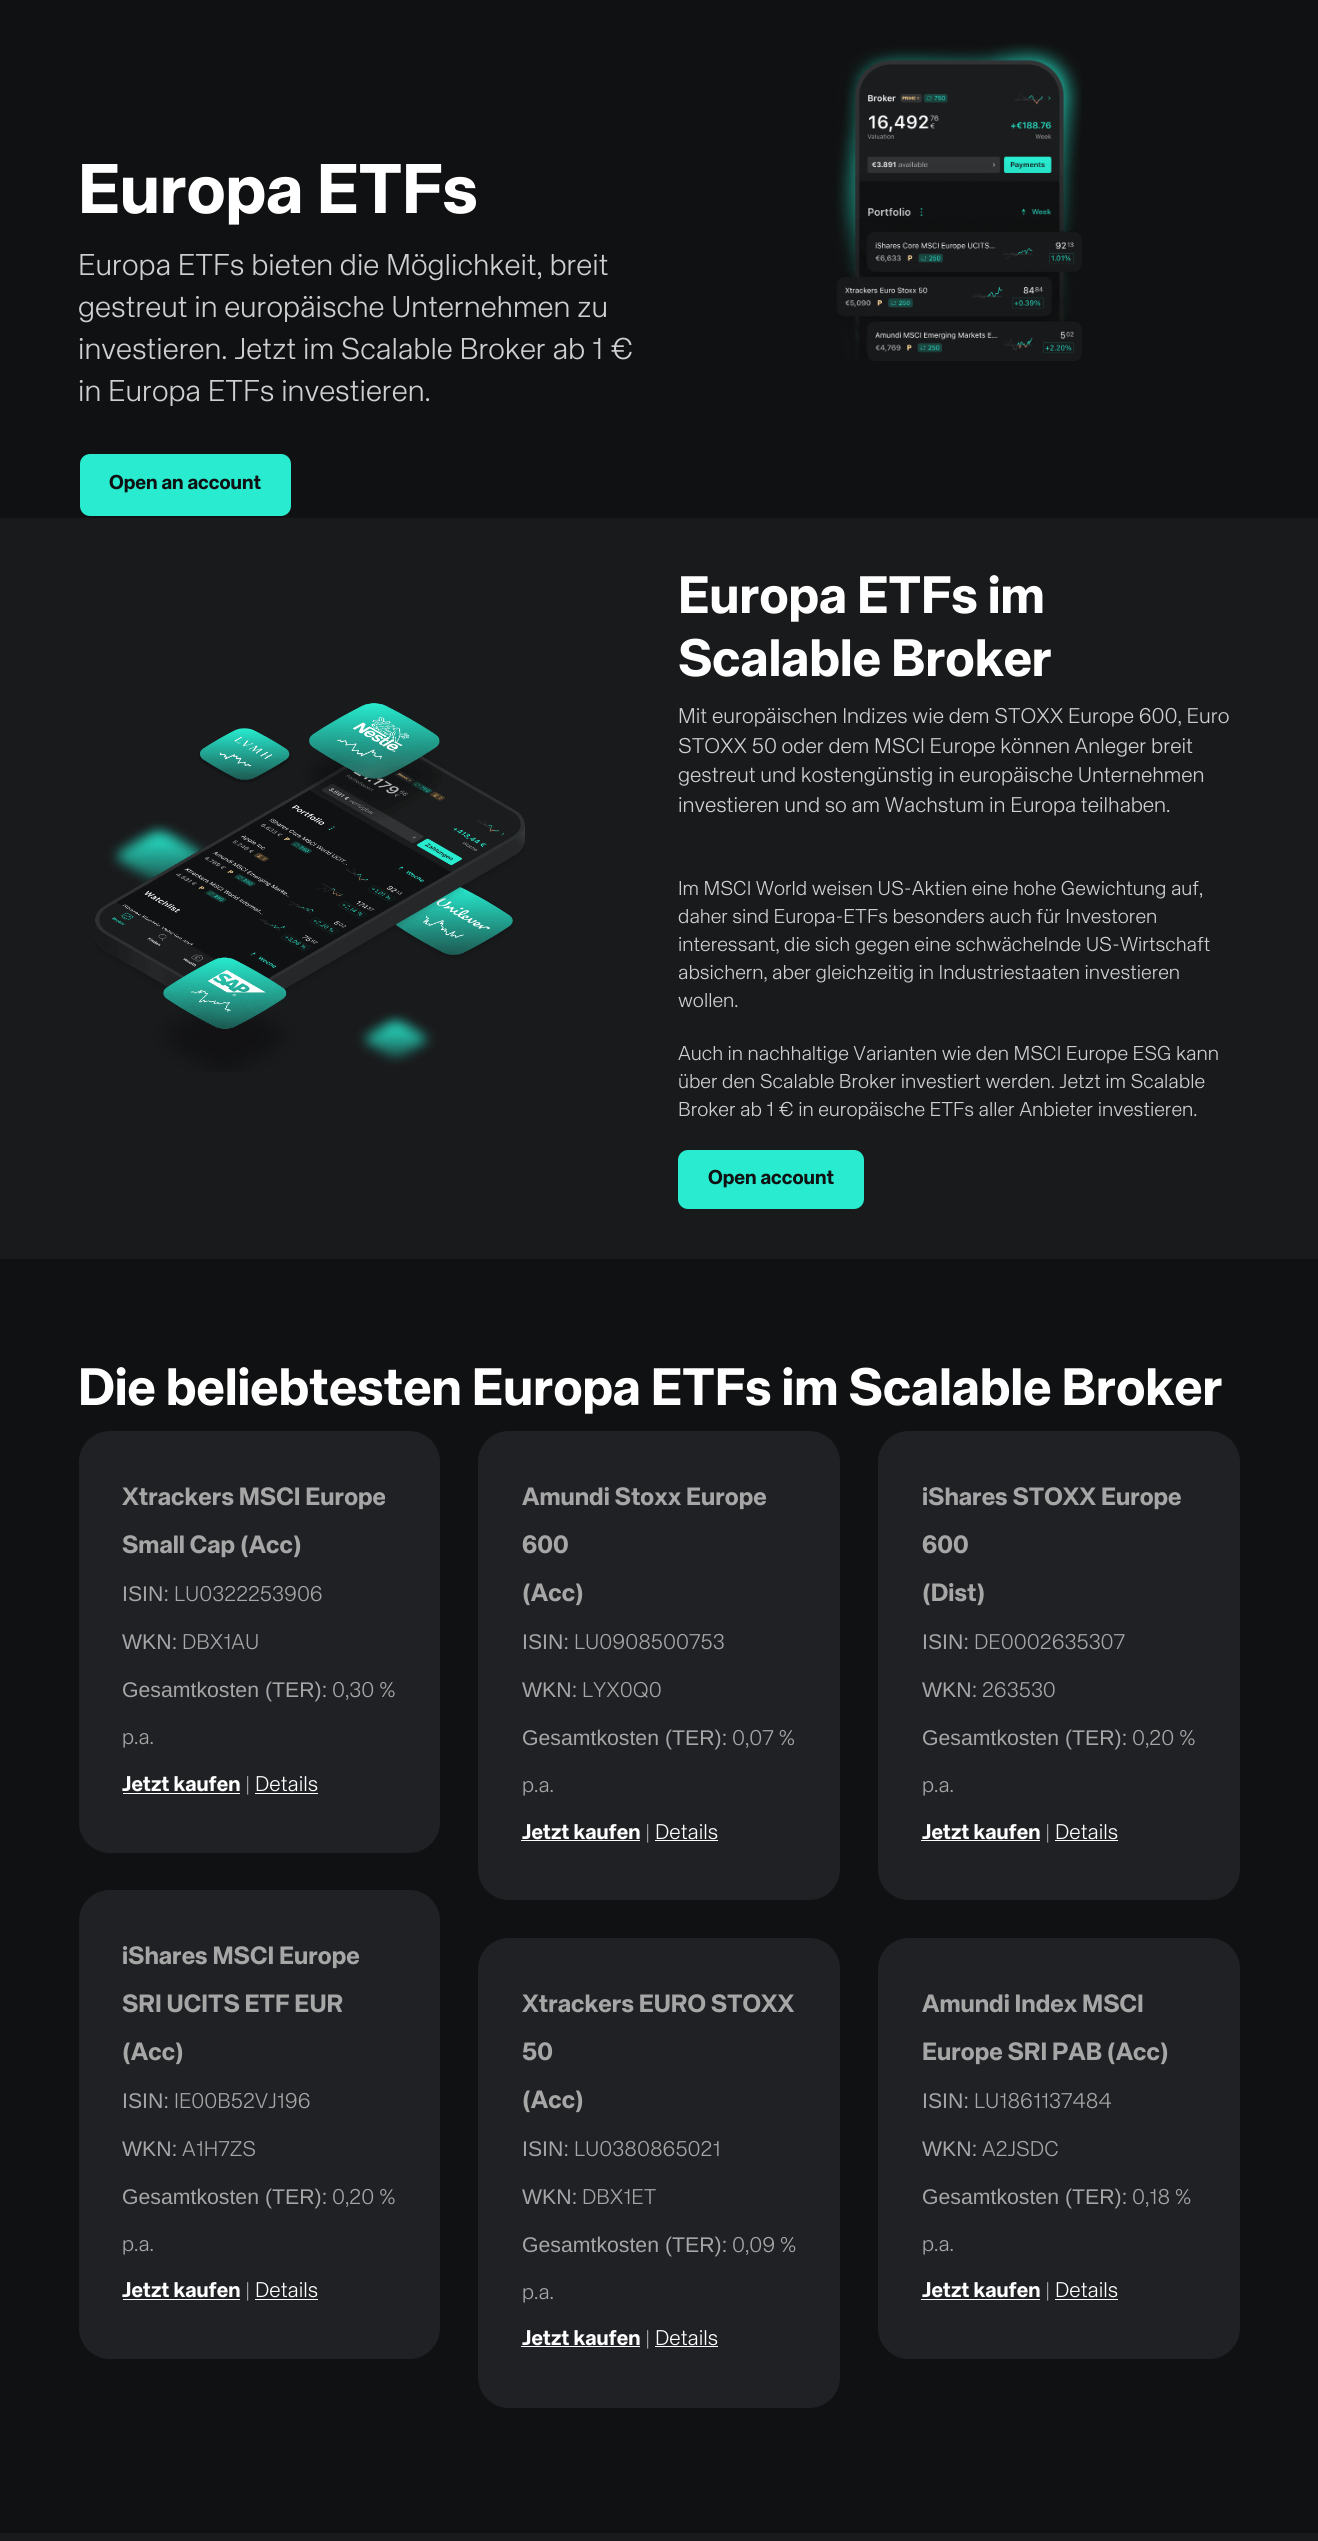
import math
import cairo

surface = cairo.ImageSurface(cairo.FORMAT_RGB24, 1318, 2541)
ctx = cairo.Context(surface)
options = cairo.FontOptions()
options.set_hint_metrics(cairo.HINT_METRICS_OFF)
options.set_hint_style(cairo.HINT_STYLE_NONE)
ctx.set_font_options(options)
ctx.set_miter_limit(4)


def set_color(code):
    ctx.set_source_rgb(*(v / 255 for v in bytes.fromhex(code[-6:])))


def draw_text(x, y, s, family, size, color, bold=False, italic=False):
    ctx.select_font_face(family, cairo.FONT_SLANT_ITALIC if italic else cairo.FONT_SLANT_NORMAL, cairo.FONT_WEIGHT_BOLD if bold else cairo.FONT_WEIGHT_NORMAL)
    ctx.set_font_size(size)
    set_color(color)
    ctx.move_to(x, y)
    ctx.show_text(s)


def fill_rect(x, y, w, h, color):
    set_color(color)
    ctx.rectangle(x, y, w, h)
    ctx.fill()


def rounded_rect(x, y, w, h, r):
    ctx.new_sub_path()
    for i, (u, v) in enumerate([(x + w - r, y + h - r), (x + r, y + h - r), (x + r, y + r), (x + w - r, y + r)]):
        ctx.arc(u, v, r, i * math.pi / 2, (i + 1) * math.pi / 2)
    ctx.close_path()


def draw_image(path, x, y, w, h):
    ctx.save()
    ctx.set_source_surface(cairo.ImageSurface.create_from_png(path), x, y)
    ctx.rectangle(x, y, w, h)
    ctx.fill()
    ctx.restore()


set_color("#101112")
ctx.paint()
draw_text(78, 213, "Europa ETFs", "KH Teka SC", 70, "#ffffff", bold=True)
draw_text(78, 275, "Europa ETFs bieten die Möglichkeit, breit", "KH Teka SC Light", 30, "#cfcfd0")
draw_text(78, 317, "gestreut in europäische Unternehmen zu", "KH Teka SC Light", 30, "#cfcfd0")
draw_text(78, 359, "investieren. Jetzt im Scalable Broker ab 1 €", "KH Teka SC Light", 30, "#cfcfd0")
draw_text(78, 401, "in Europa ETFs investieren.", "KH Teka SC Light", 30, "#cfcfd0")
set_color("#28ebcf")
rounded_rect(80, 454, 211, 62, 10)
ctx.fill()
draw_text(109, 489, "Open an account", "KH Teka SC", 20, "#101112", bold=True)
draw_image("assets/img1.png", 836, 43, 246, 318)
fill_rect(0, 518, 1318, 741, "#191a1c")
draw_image("assets/img2.png", 95, 703, 430, 369)
draw_text(678, 613, "Europa ETFs im", "KH Teka SC", 52.5, "#ffffff", bold=True)
draw_text(678, 676, "Scalable Broker", "KH Teka SC", 52.5, "#ffffff", bold=True)
draw_text(678, 723, "Mit europäischen Indizes wie dem STOXX Europe 600, Euro", "KH Teka SC Light", 21.25, "#cfcfd0")
draw_text(678, 753, "STOXX 50 oder dem MSCI Europe können Anleger breit", "KH Teka SC Light", 21.25, "#cfcfd0")
draw_text(678, 782, "gestreut und kostengünstig in europäische Unternehmen", "KH Teka SC Light", 21.25, "#cfcfd0")
draw_text(678, 812, "investieren und so am Wachstum in Europa teilhaben.", "KH Teka SC Light", 21.25, "#cfcfd0")
draw_text(678, 895, "Im MSCI World weisen US-Aktien eine hohe Gewichtung auf,", "KH Teka SC Light", 20, "#cfcfd0")
draw_text(678, 923, "daher sind Europa-ETFs besonders auch für Investoren", "KH Teka SC Light", 20, "#cfcfd0")
draw_text(678, 951, "interessant, die sich gegen eine schwächelnde US-Wirtschaft", "KH Teka SC Light", 20, "#cfcfd0")
draw_text(678, 979, "absichern, aber gleichzeitig in Industriestaaten investieren", "KH Teka SC Light", 20, "#cfcfd0")
draw_text(678, 1007, "wollen.", "KH Teka SC Light", 20, "#cfcfd0")
draw_text(678, 1060, "Auch in nachhaltige Varianten wie den MSCI Europe ESG kann", "KH Teka SC Light", 20, "#cfcfd0")
draw_text(678, 1088, "über den Scalable Broker investiert werden. Jetzt im Scalable", "KH Teka SC Light", 20, "#cfcfd0")
draw_text(678, 1116, "Broker ab 1 € in europäische ETFs aller Anbieter investieren.", "KH Teka SC Light", 20, "#cfcfd0")
set_color("#28ebcf")
rounded_rect(678, 1150, 186, 59, 10)
ctx.fill()
draw_text(708, 1184, "Open account", "KH Teka SC", 20, "#101112", bold=True)
draw_text(78, 1405, "Die beliebtesten Europa ETFs im Scalable Broker", "KH Teka SC", 52.5, "#ffffff", bold=True)
set_color("#202124")
rounded_rect(79, 1431, 361, 422, 31)
ctx.fill()
draw_text(122, 1505, "Xtrackers MSCI Europe", "KH Teka SC", 25, "#a6a6a7", bold=True)
draw_text(122, 1553, "Small Cap (Acc)", "KH Teka SC", 25, "#a6a6a7", bold=True)
draw_text(122, 1601, "ISIN:", "Liberation Sans", 21.25, "#a6a6a7")
draw_text(174, 1601, "LU0322253906", "KH Teka SC Light", 21.25, "#a6a6a7")
draw_text(122, 1649, "WKN:", "Liberation Sans", 21.25, "#a6a6a7")
draw_text(182, 1649, "DBX1AU", "KH Teka SC Light", 21.25, "#a6a6a7")
draw_text(122, 1697, "Gesamtkosten (TER):", "Liberation Sans", 21.25, "#a6a6a7")
draw_text(332, 1697, "0,30 %", "KH Teka SC Light", 21.25, "#a6a6a7")
draw_text(122, 1744, "p.a.", "KH Teka SC Light", 21.25, "#a6a6a7")
draw_text(122, 1791, "Jetzt kaufen", "KH Teka SC", 21.25, "#ffffff", bold=True)
fill_rect(123, 1793, 117, 1, "#ffffff")
draw_text(245, 1791, "|", "KH Teka SC Light", 21.25, "#a6a6a7")
draw_text(255, 1791, "Details", "KH Teka SC Light", 21.25, "#ffffff")
fill_rect(255, 1793, 63, 1, "#ffffff")
set_color("#202124")
rounded_rect(79, 1890, 361, 469, 31)
ctx.fill()
draw_text(122, 1964, "iShares MSCI Europe", "KH Teka SC", 25, "#a6a6a7", bold=True)
draw_text(122, 2012, "SRI UCITS ETF EUR", "KH Teka SC", 25, "#a6a6a7", bold=True)
draw_text(122, 2060, "(Acc)", "KH Teka SC", 25, "#a6a6a7", bold=True)
draw_text(122, 2108, "ISIN:", "Liberation Sans", 21.25, "#a6a6a7")
draw_text(174, 2108, "IE00B52VJ196", "KH Teka SC Light", 21.25, "#a6a6a7")
draw_text(122, 2156, "WKN:", "Liberation Sans", 21.25, "#a6a6a7")
draw_text(182, 2156, "A1H7ZS", "KH Teka SC Light", 21.25, "#a6a6a7")
draw_text(122, 2204, "Gesamtkosten (TER):", "Liberation Sans", 21.25, "#a6a6a7")
draw_text(332, 2204, "0,20 %", "KH Teka SC Light", 21.25, "#a6a6a7")
draw_text(122, 2251, "p.a.", "KH Teka SC Light", 21.25, "#a6a6a7")
draw_text(122, 2297, "Jetzt kaufen", "KH Teka SC", 21.25, "#ffffff", bold=True)
fill_rect(123, 2299, 117, 1, "#ffffff")
draw_text(245, 2297, "|", "KH Teka SC Light", 21.25, "#a6a6a7")
draw_text(255, 2297, "Details", "KH Teka SC Light", 21.25, "#ffffff")
fill_rect(255, 2299, 63, 1, "#ffffff")
set_color("#202124")
rounded_rect(478, 1431, 362, 469, 31)
ctx.fill()
draw_text(522, 1505, "Amundi Stoxx Europe", "KH Teka SC", 25, "#a6a6a7", bold=True)
draw_text(522, 1553, "600", "KH Teka SC", 25, "#a6a6a7", bold=True)
draw_text(522, 1601, "(Acc)", "KH Teka SC", 25, "#a6a6a7", bold=True)
draw_text(522, 1649, "ISIN:", "Liberation Sans", 21.25, "#a6a6a7")
draw_text(574, 1649, "LU0908500753", "KH Teka SC Light", 21.25, "#a6a6a7")
draw_text(522, 1697, "WKN:", "Liberation Sans", 21.25, "#a6a6a7")
draw_text(582, 1697, "LYX0Q0", "KH Teka SC Light", 21.25, "#a6a6a7")
draw_text(522, 1745, "Gesamtkosten (TER):", "Liberation Sans", 21.25, "#a6a6a7")
draw_text(732, 1745, "0,07 %", "KH Teka SC Light", 21.25, "#a6a6a7")
draw_text(522, 1792, "p.a.", "KH Teka SC Light", 21.25, "#a6a6a7")
draw_text(522, 1839, "Jetzt kaufen", "KH Teka SC", 21.25, "#ffffff", bold=True)
fill_rect(521, 1840, 119, 1, "#ffffff")
draw_text(645, 1839, "|", "KH Teka SC Light", 21.25, "#a6a6a7")
draw_text(655, 1839, "Details", "KH Teka SC Light", 21.25, "#ffffff")
fill_rect(655, 1840, 63, 1, "#ffffff")
set_color("#202124")
rounded_rect(478, 1938, 362, 470, 31)
ctx.fill()
draw_text(522, 2012, "Xtrackers EURO STOXX", "KH Teka SC", 25, "#a6a6a7", bold=True)
draw_text(522, 2060, "50", "KH Teka SC", 25, "#a6a6a7", bold=True)
draw_text(522, 2108, "(Acc)", "KH Teka SC", 25, "#a6a6a7", bold=True)
draw_text(522, 2156, "ISIN:", "Liberation Sans", 21.25, "#a6a6a7")
draw_text(574, 2156, "LU0380865021", "KH Teka SC Light", 21.25, "#a6a6a7")
draw_text(522, 2204, "WKN:", "Liberation Sans", 21.25, "#a6a6a7")
draw_text(582, 2204, "DBX1ET", "KH Teka SC Light", 21.25, "#a6a6a7")
draw_text(522, 2252, "Gesamtkosten (TER):", "Liberation Sans", 21.25, "#a6a6a7")
draw_text(732, 2252, "0,09 %", "KH Teka SC Light", 21.25, "#a6a6a7")
draw_text(522, 2299, "p.a.", "KH Teka SC Light", 21.25, "#a6a6a7")
draw_text(522, 2345, "Jetzt kaufen", "KH Teka SC", 21.25, "#ffffff", bold=True)
fill_rect(521, 2346, 119, 1, "#ffffff")
draw_text(645, 2345, "|", "KH Teka SC Light", 21.25, "#a6a6a7")
draw_text(655, 2345, "Details", "KH Teka SC Light", 21.25, "#ffffff")
fill_rect(655, 2346, 63, 1, "#ffffff")
set_color("#202124")
rounded_rect(878, 1431, 362, 469, 31)
ctx.fill()
draw_text(922, 1505, "iShares STOXX Europe", "KH Teka SC", 25, "#a6a6a7", bold=True)
draw_text(922, 1553, "600", "KH Teka SC", 25, "#a6a6a7", bold=True)
draw_text(922, 1601, "(Dist)", "KH Teka SC", 25, "#a6a6a7", bold=True)
draw_text(922, 1649, "ISIN:", "Liberation Sans", 21.25, "#a6a6a7")
draw_text(974, 1649, "DE0002635307", "KH Teka SC Light", 21.25, "#a6a6a7")
draw_text(922, 1697, "WKN:", "Liberation Sans", 21.25, "#a6a6a7")
draw_text(982, 1697, "263530", "KH Teka SC Light", 21.25, "#a6a6a7")
draw_text(922, 1745, "Gesamtkosten (TER):", "Liberation Sans", 21.25, "#a6a6a7")
draw_text(1132, 1745, "0,20 %", "KH Teka SC Light", 21.25, "#a6a6a7")
draw_text(922, 1792, "p.a.", "KH Teka SC Light", 21.25, "#a6a6a7")
draw_text(922, 1839, "Jetzt kaufen", "KH Teka SC", 21.25, "#ffffff", bold=True)
fill_rect(921, 1840, 119, 1, "#ffffff")
draw_text(1045, 1839, "|", "KH Teka SC Light", 21.25, "#a6a6a7")
draw_text(1055, 1839, "Details", "KH Teka SC Light", 21.25, "#ffffff")
fill_rect(1055, 1840, 63, 1, "#ffffff")
set_color("#202124")
rounded_rect(878, 1938, 362, 421, 31)
ctx.fill()
draw_text(922, 2012, "Amundi Index MSCI", "KH Teka SC", 25, "#a6a6a7", bold=True)
draw_text(922, 2060, "Europe SRI PAB (Acc)", "KH Teka SC", 25, "#a6a6a7", bold=True)
draw_text(922, 2108, "ISIN:", "Liberation Sans", 21.25, "#a6a6a7")
draw_text(974, 2108, "LU1861137484", "KH Teka SC Light", 21.25, "#a6a6a7")
draw_text(922, 2156, "WKN:", "Liberation Sans", 21.25, "#a6a6a7")
draw_text(982, 2156, "A2JSDC", "KH Teka SC Light", 21.25, "#a6a6a7")
draw_text(922, 2204, "Gesamtkosten (TER):", "Liberation Sans", 21.25, "#a6a6a7")
draw_text(1132, 2204, "0,18 %", "KH Teka SC Light", 21.25, "#a6a6a7")
draw_text(922, 2251, "p.a.", "KH Teka SC Light", 21.25, "#a6a6a7")
draw_text(922, 2297, "Jetzt kaufen", "KH Teka SC", 21.25, "#ffffff", bold=True)
fill_rect(921, 2299, 119, 1, "#ffffff")
draw_text(1045, 2297, "|", "KH Teka SC Light", 21.25, "#a6a6a7")
draw_text(1055, 2297, "Details", "KH Teka SC Light", 21.25, "#ffffff")
fill_rect(1055, 2299, 63, 1, "#ffffff")
fill_rect(0, 2533, 1318, 8, "#191a1c")
surface.write_to_png("output.png")
